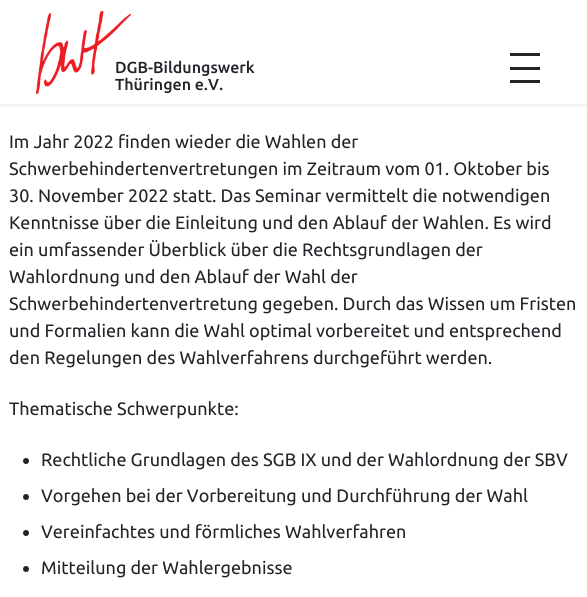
import math
import cairo

surface = cairo.ImageSurface(cairo.FORMAT_RGB24, 587, 597)
ctx = cairo.Context(surface)
options = cairo.FontOptions()
options.set_hint_metrics(cairo.HINT_METRICS_OFF)
options.set_hint_style(cairo.HINT_STYLE_NONE)
ctx.set_font_options(options)
ctx.set_miter_limit(4)


def set_color(code):
    ctx.set_source_rgb(*(v / 255 for v in bytes.fromhex(code[-6:])))


def draw_text(x, y, s, family, size, color, bold=False, italic=False):
    ctx.select_font_face(family, cairo.FONT_SLANT_ITALIC if italic else cairo.FONT_SLANT_NORMAL, cairo.FONT_WEIGHT_BOLD if bold else cairo.FONT_WEIGHT_NORMAL)
    ctx.set_font_size(size)
    set_color(color)
    ctx.move_to(x, y)
    ctx.show_text(s)


def fill_rect(x, y, w, h, color):
    set_color(color)
    ctx.rectangle(x, y, w, h)
    ctx.fill()


def rounded_rect(x, y, w, h, r):
    ctx.new_sub_path()
    for i, (u, v) in enumerate([(x + w - r, y + h - r), (x + r, y + h - r), (x + r, y + r), (x + w - r, y + r)]):
        ctx.arc(u, v, r, i * math.pi / 2, (i + 1) * math.pi / 2)
    ctx.close_path()


def draw_shadow(x, y, w, h, r, blur, alpha):
    ctx.push_group_with_content(cairo.CONTENT_ALPHA)
    ctx.set_operator(cairo.OPERATOR_SOURCE)
    for i in range(15, -16, -2):
        e = blur * i / 6
        if min(w, h) + 2 * e > 0:
            ctx.set_source_rgba(0, 0, 0, alpha * math.erfc((i - 1) / 8.5) / 2)
            rounded_rect(x - e, y - e, w + 2 * e, h + 2 * e, max(0, min(r + e + blur * .6, min(w, h) / 2 + e)))
            ctx.fill()
    ctx.mask(ctx.pop_group())


def draw_image(path, x, y, w, h):
    ctx.save()
    ctx.set_source_surface(cairo.ImageSurface.create_from_png(path), x, y)
    ctx.rectangle(x, y, w, h)
    ctx.fill()
    ctx.restore()


set_color("#ffffff")
ctx.paint()
ctx.save()
ctx.rectangle(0, 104, 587, 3)
ctx.clip()
set_color("#000000")
draw_shadow(0, 2, 587, 104, 0, 2, 0.07)
ctx.restore()
draw_image("assets/img1.png", 36, 11, 95, 83)
draw_text(115, 73, "DGB-Bildungswerk", "Ubuntu Medium", 16, "#212529")
draw_text(115, 90, "Thüringen e.V.", "Ubuntu Medium", 16, "#212529")
fill_rect(510, 53, 30, 3, "#212529")
fill_rect(510, 67, 30, 3, "#212529")
fill_rect(510, 80, 30, 3, "#212529")
draw_text(9, 148, "Im Jahr 2022 finden wieder die Wahlen der", "Ubuntu", 18, "#212529")
draw_text(9, 175, "Schwerbehindertenvertretungen im Zeitraum vom 01. Oktober bis", "Ubuntu", 18, "#212529")
draw_text(9, 202, "30. November 2022 statt. Das Seminar vermittelt die notwendigen", "Ubuntu", 18, "#212529")
draw_text(9, 229, "Kenntnisse über die Einleitung und den Ablauf der Wahlen. Es wird", "Ubuntu", 18, "#212529")
draw_text(9, 256, "ein umfassender Überblick über die Rechtsgrundlagen der", "Ubuntu", 18, "#212529")
draw_text(9, 283, "Wahlordnung und den Ablauf der Wahl der", "Ubuntu", 18, "#212529")
draw_text(9, 310, "Schwerbehindertenvertretung gegeben. Durch das Wissen um Fristen", "Ubuntu", 18, "#212529")
draw_text(9, 337, "und Formalien kann die Wahl optimal vorbereitet und entsprechend", "Ubuntu", 18, "#212529")
draw_text(9, 364, "den Regelungen des Wahlverfahrens durchgeführt werden.", "Ubuntu", 18, "#212529")
draw_text(9, 415, "Thematische Schwerpunkte:", "Ubuntu", 18, "#212529")
ctx.new_path()
ctx.arc(26, 461, 3, 0, 2 * math.pi)
ctx.fill()
draw_text(41, 466, "Rechtliche Grundlagen des SGB IX und der Wahlordnung der SBV", "Ubuntu", 18, "#212529")
ctx.new_path()
ctx.arc(26, 497, 3, 0, 2 * math.pi)
ctx.fill()
draw_text(41, 502, "Vorgehen bei der Vorbereitung und Durchführung der Wahl", "Ubuntu", 18, "#212529")
ctx.new_path()
ctx.arc(26, 533, 3, 0, 2 * math.pi)
ctx.fill()
draw_text(41, 538, "Vereinfachtes und förmliches Wahlverfahren", "Ubuntu", 18, "#212529")
ctx.new_path()
ctx.arc(26, 569, 3, 0, 2 * math.pi)
ctx.fill()
draw_text(41, 574, "Mitteilung der Wahlergebnisse", "Ubuntu", 18, "#212529")
surface.write_to_png("output.png")
